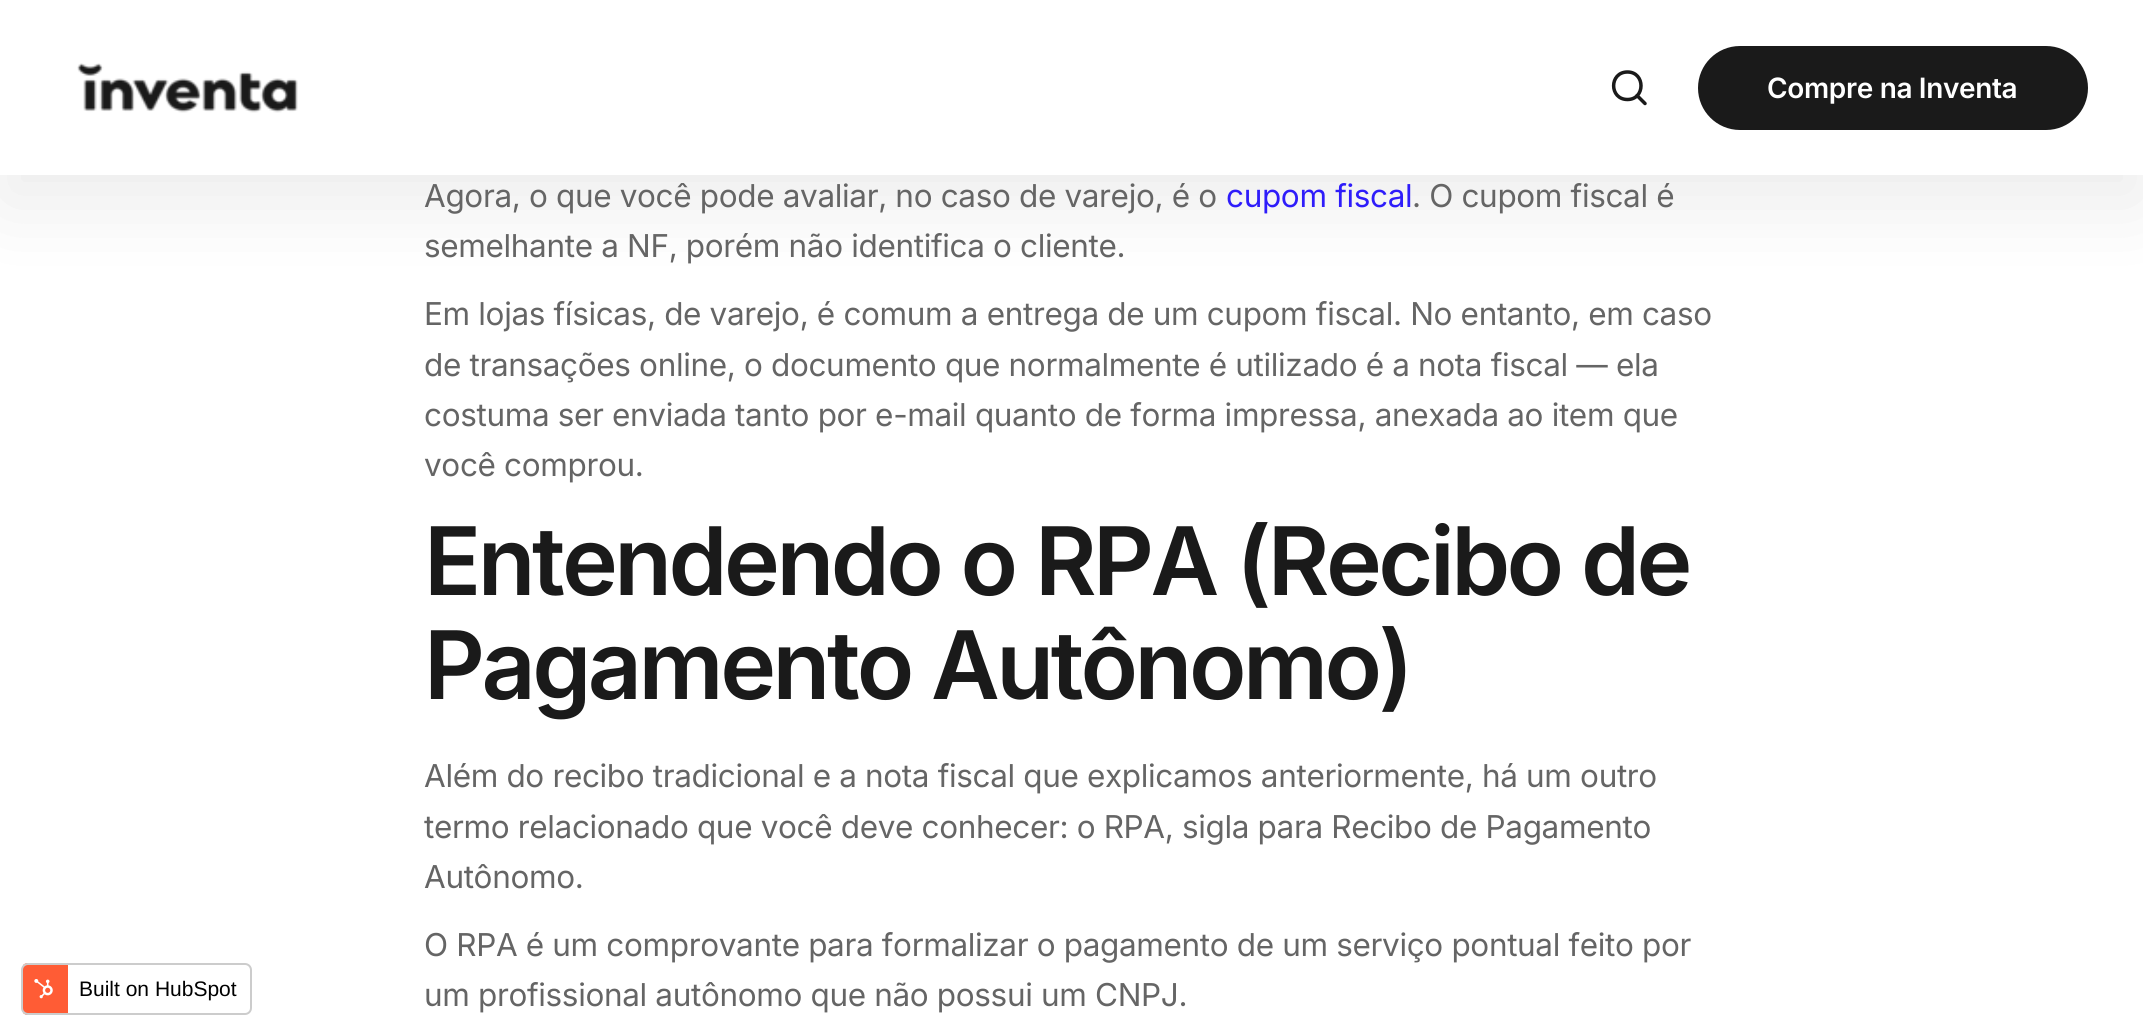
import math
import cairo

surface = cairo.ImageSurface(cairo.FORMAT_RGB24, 2143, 1035)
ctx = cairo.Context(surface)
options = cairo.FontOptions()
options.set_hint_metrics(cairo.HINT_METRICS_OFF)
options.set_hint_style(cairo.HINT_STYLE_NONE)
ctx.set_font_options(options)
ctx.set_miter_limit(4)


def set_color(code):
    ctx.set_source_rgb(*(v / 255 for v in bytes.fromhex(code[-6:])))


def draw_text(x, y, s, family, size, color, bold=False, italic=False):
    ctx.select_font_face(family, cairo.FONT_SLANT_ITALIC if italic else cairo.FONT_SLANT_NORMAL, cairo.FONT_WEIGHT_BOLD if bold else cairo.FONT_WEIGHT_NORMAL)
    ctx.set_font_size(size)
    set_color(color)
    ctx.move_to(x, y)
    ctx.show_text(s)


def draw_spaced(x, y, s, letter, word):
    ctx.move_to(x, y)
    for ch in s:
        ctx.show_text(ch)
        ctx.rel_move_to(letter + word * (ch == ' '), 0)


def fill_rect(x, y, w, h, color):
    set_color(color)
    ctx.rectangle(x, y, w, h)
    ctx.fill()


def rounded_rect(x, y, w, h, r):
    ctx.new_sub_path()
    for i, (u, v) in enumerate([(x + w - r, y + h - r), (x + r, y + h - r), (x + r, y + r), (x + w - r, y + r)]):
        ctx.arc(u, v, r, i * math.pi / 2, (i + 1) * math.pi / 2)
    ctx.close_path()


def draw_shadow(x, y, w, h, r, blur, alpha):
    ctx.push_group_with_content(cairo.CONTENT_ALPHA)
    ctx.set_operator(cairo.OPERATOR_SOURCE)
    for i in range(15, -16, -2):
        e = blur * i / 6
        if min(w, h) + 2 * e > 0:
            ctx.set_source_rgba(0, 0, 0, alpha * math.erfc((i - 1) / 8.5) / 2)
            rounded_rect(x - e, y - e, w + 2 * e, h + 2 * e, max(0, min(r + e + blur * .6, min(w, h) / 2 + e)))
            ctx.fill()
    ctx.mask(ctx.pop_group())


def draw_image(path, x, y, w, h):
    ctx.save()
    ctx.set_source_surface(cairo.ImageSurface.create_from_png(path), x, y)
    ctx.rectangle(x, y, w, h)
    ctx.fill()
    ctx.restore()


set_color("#ffffff")
ctx.paint()
ctx.save()
rounded_rect(21, 963, 231, 52, 7)
ctx.clip()
fill_rect(23, 963, 45, 52, "#ff5c35")
ctx.restore()
rounded_rect(22, 964, 229, 50, 6)
set_color("#cccccc")
ctx.stroke()
draw_image("assets/img1.png", 34, 979, 19, 20)
draw_text(79, 996, "Built on HubSpot", "Liberation Sans", 21, "#000000")
set_color("#000000")
draw_shadow(0, 28, 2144, 175, 0, 42, 0.08)
fill_rect(0, 0, 2143, 175, "#ffffff")
draw_image("assets/img2.png", 77, 63, 221, 50)
ctx.new_path()
ctx.move_to(1627.5, 99.5)
ctx.curve_to(1645.5, 99.5, 1645.5, 72, 1627.5, 72)
ctx.curve_to(1609, 72, 1609, 99.5, 1627.5, 99.5)
ctx.close_path()
ctx.move_to(1637, 95.5)
ctx.line_to(1645, 103.5)
set_color("#1a1a1a")
ctx.set_line_width(3.5)
ctx.set_line_cap(cairo.LINE_CAP_ROUND)
ctx.set_line_join(cairo.LINE_JOIN_ROUND)
ctx.stroke()
rounded_rect(1700, 48, 386, 80, 40)
ctx.fill_preserve()
ctx.set_line_width(4)
ctx.set_line_cap(cairo.LINE_CAP_BUTT)
ctx.set_line_join(cairo.LINE_JOIN_MITER)
ctx.stroke()
ctx.select_font_face("Inter SemiBold")
ctx.set_font_size(28)
set_color("#ffffff")
draw_spaced(1767, 98, "Compre na Inventa", -0.35, 0)
ctx.select_font_face("Inter")
ctx.set_font_size(31.5)
set_color("#656565")
draw_spaced(424, 207, "Agora, o que você pode avaliar, no caso de varejo, é o", -0.35, 0)
set_color("#2e1cfa")
draw_spaced(1226, 207, "cupom fiscal", -0.35, 0)
set_color("#656565")
draw_spaced(1412, 207, ". O cupom fiscal é", -0.35, 0)
draw_spaced(424, 257, "semelhante a NF, porém não identifica o cliente.", -0.35, 0)
draw_spaced(424, 325, "Em lojas físicas, de varejo, é comum a entrega de um cupom fiscal. No entanto, em caso", -0.35, 0)
draw_spaced(424, 376, "de transações online, o documento que normalmente é utilizado é a nota fiscal — ela", -0.35, 0)
draw_spaced(424, 426, "costuma ser enviada tanto por e-mail quanto de forma impressa, anexada ao item que", -0.35, 0)
draw_spaced(424, 476, "você comprou.", -0.35, 0)
ctx.select_font_face("Inter SemiBold")
ctx.set_font_size(94.5)
set_color("#1a1a1a")
draw_spaced(424, 595, "Entendendo o RPA (Recibo de", -3.5, 0)
draw_spaced(424, 699, "Pagamento Autônomo)", -3.5, 0)
ctx.select_font_face("Inter")
ctx.set_font_size(31.5)
set_color("#656565")
draw_spaced(424, 787, "Além do recibo tradicional e a nota fiscal que explicamos anteriormente, há um outro", -0.35, 0)
draw_spaced(424, 838, "termo relacionado que você deve conhecer: o RPA, sigla para Recibo de Pagamento", -0.35, 0)
draw_spaced(424, 888, "Autônomo.", -0.35, 0)
draw_spaced(424, 956, "O RPA é um comprovante para formalizar o pagamento de um serviço pontual feito por", -0.35, 0)
draw_spaced(424, 1006, "um profissional autônomo que não possui um CNPJ.", -0.35, 0)
surface.write_to_png("output.png")
